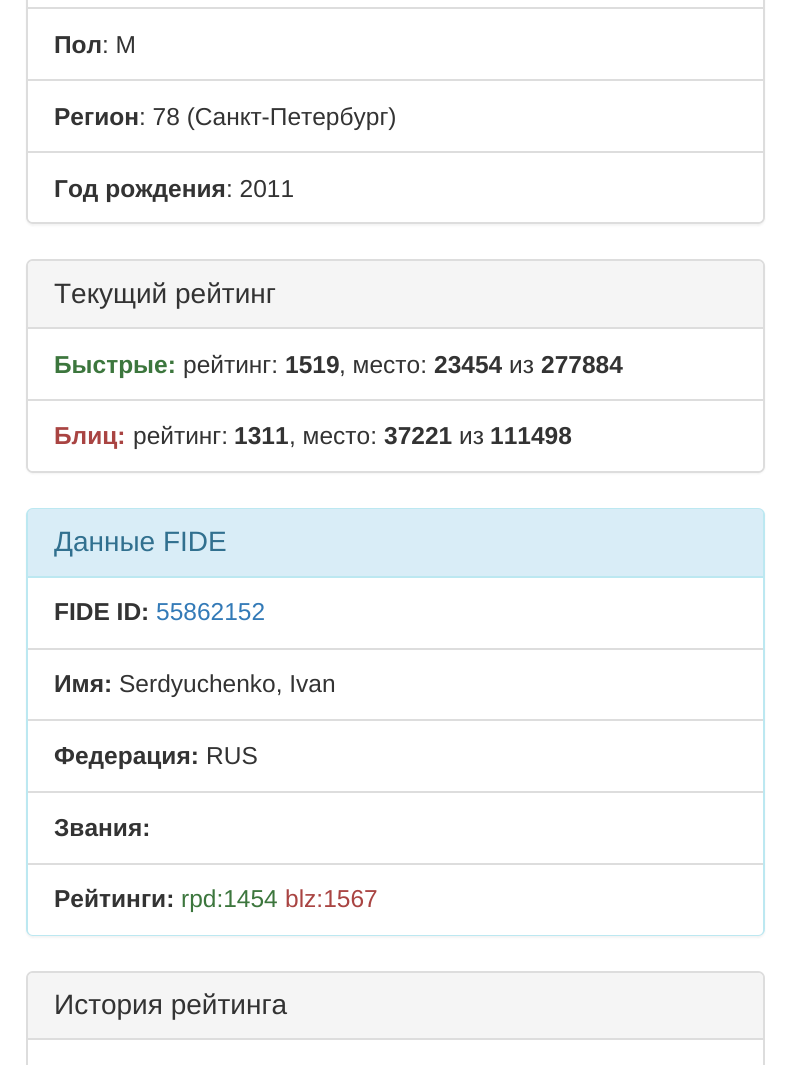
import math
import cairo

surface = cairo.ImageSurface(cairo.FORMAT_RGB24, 790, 1065)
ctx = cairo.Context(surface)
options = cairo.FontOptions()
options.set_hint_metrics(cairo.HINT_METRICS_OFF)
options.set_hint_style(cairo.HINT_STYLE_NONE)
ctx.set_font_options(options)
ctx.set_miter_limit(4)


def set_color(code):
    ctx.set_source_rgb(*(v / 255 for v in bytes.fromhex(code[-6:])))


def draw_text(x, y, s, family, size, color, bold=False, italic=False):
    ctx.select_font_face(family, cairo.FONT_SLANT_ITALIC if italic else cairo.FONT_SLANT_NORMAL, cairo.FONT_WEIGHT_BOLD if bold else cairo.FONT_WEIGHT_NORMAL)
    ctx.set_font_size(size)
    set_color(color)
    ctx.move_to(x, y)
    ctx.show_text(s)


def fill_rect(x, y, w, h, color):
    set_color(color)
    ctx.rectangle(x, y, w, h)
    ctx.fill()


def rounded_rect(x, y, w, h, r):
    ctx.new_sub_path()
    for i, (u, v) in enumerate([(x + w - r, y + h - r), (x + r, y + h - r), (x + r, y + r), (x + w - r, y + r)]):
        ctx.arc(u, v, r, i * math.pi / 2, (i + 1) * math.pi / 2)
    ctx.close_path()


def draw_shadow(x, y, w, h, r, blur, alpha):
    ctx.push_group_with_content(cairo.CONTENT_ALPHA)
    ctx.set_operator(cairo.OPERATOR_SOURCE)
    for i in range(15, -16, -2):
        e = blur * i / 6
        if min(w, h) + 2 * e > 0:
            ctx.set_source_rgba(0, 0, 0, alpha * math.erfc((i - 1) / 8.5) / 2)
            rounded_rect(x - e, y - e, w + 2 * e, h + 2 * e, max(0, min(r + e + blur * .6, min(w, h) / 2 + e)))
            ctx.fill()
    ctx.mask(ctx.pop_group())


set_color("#ffffff")
ctx.paint()
set_color("#000000")
draw_shadow(26, -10, 739, 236, 7, 1, 0.05)
set_color("#ffffff")
rounded_rect(27, -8, 737, 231, 6)
ctx.fill_preserve()
set_color("#dddddd")
ctx.stroke()
fill_rect(28, 7, 735, 2, "#dddddd")
fill_rect(28, 79, 735, 2, "#dddddd")
draw_text(54, 53, "Пол", "Liberation Sans", 24.5, "#333333", bold=True)
draw_text(102, 53, ": М", "Liberation Sans", 24.5, "#333333")
draw_text(54, 125, "Регион", "Liberation Sans", 24.5, "#333333", bold=True)
draw_text(139, 125, ": 78 (Санкт-Петербург)", "Liberation Sans", 24.5, "#333333")
set_color("#ffffff")
ctx.new_path()
ctx.move_to(28, 151)
ctx.line_to(763, 151)
ctx.line_to(763, 217)
ctx.curve_to(763, 220, 761, 222, 758, 222)
ctx.line_to(33, 222)
ctx.curve_to(30, 222, 28, 220, 28, 217)
ctx.close_path()
ctx.fill()
fill_rect(28, 151, 735, 2, "#dddddd")
draw_text(54, 197, "Год рождения", "Liberation Sans", 24.5, "#333333", bold=True)
draw_text(226, 197, ": 2011", "Liberation Sans", 24.5, "#333333")
set_color("#000000")
draw_shadow(26, 261, 739, 213, 7, 1, 0.05)
set_color("#ffffff")
rounded_rect(27, 260, 737, 212, 6)
ctx.fill_preserve()
set_color("#dddddd")
ctx.stroke()
set_color("#f5f5f5")
ctx.new_path()
ctx.move_to(33, 261)
ctx.line_to(758, 261)
ctx.curve_to(761, 261, 763, 263, 763, 266)
ctx.line_to(763, 329)
ctx.line_to(28, 329)
ctx.line_to(28, 266)
ctx.curve_to(28, 263, 30, 261, 33, 261)
ctx.close_path()
ctx.fill()
fill_rect(28, 327, 735, 2, "#dddddd")
draw_text(54, 303, "Текущий рейтинг", "Liberation Sans", 28, "#333333")
draw_text(54, 373, "Быстрые:", "Liberation Sans", 24.5, "#3c763d", bold=True)
draw_text(183, 373, "рейтинг:", "Liberation Sans", 24.5, "#333333")
draw_text(285, 373, "1519", "Liberation Sans", 24.5, "#333333", bold=True)
draw_text(339, 373, ", место:", "Liberation Sans", 24.5, "#333333")
draw_text(434, 373, "23454", "Liberation Sans", 24.5, "#333333", bold=True)
draw_text(509, 373, "из", "Liberation Sans", 24.5, "#333333")
draw_text(541, 373, "277884", "Liberation Sans", 24.5, "#333333", bold=True)
set_color("#ffffff")
ctx.new_path()
ctx.move_to(28, 399)
ctx.line_to(763, 399)
ctx.line_to(763, 466)
ctx.curve_to(763, 469, 761, 471, 758, 471)
ctx.line_to(33, 471)
ctx.curve_to(30, 471, 28, 469, 28, 466)
ctx.close_path()
ctx.fill()
fill_rect(28, 399, 735, 2, "#dddddd")
draw_text(54, 444, "Блиц:", "Liberation Sans", 24.5, "#a94442", bold=True)
draw_text(133, 444, "рейтинг:", "Liberation Sans", 24.5, "#333333")
draw_text(234, 444, "1311", "Liberation Sans", 24.5, "#333333", bold=True)
draw_text(289, 444, ", место:", "Liberation Sans", 24.5, "#333333")
draw_text(384, 444, "37221", "Liberation Sans", 24.5, "#333333", bold=True)
draw_text(459, 444, "из", "Liberation Sans", 24.5, "#333333")
draw_text(490, 444, "111498", "Liberation Sans", 24.5, "#333333", bold=True)
set_color("#000000")
draw_shadow(26, 509, 739, 429, 7, 1, 0.05)
set_color("#ffffff")
rounded_rect(27, 509, 737, 426, 6)
ctx.fill_preserve()
set_color("#bce8f1")
ctx.stroke()
set_color("#d9edf7")
ctx.new_path()
ctx.move_to(33, 509)
ctx.line_to(758, 509)
ctx.curve_to(761, 509, 763, 511, 763, 514)
ctx.line_to(763, 578)
ctx.line_to(28, 578)
ctx.line_to(28, 514)
ctx.curve_to(28, 511, 30, 509, 33, 509)
ctx.close_path()
ctx.fill()
fill_rect(28, 576, 735, 2, "#bce8f1")
draw_text(54, 551, "Данные FIDE", "Liberation Sans", 28, "#31708f")
draw_text(54, 620, "FIDE ID:", "Liberation Sans", 24.5, "#333333", bold=True)
draw_text(156, 620, "55862152", "Liberation Sans", 24.5, "#337ab7")
fill_rect(28, 648, 735, 2, "#dddddd")
fill_rect(28, 719, 735, 2, "#dddddd")
draw_text(54, 692, "Имя:", "Liberation Sans", 24.5, "#333333", bold=True)
draw_text(119, 692, "Serdyuchenko, Ivan", "Liberation Sans", 24.5, "#333333")
fill_rect(28, 791, 735, 2, "#dddddd")
draw_text(54, 764, "Федерация:", "Liberation Sans", 24.5, "#333333", bold=True)
draw_text(206, 764, "RUS", "Liberation Sans", 24.5, "#333333")
draw_text(54, 836, "Звания:", "Liberation Sans", 24.5, "#333333", bold=True)
set_color("#ffffff")
ctx.new_path()
ctx.move_to(28, 863)
ctx.line_to(763, 863)
ctx.line_to(763, 930)
ctx.curve_to(763, 933, 761, 935, 758, 935)
ctx.line_to(33, 935)
ctx.curve_to(30, 935, 28, 933, 28, 930)
ctx.close_path()
ctx.fill()
fill_rect(28, 863, 735, 2, "#dddddd")
draw_text(54, 907, "Рейтинги:", "Liberation Sans", 24.5, "#333333", bold=True)
draw_text(181, 907, "rpd:1454", "Liberation Sans", 24.5, "#3c763d")
draw_text(285, 907, "blz:1567", "Liberation Sans", 24.5, "#a94442")
rounded_rect(27, 972, 737, 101, 6)
set_color("#dddddd")
ctx.stroke()
set_color("#f5f5f5")
ctx.new_path()
ctx.move_to(33, 973)
ctx.line_to(758, 973)
ctx.curve_to(761, 973, 763, 975, 763, 978)
ctx.line_to(763, 1040)
ctx.line_to(28, 1040)
ctx.line_to(28, 978)
ctx.curve_to(28, 975, 30, 973, 33, 973)
ctx.close_path()
ctx.fill()
fill_rect(28, 1038, 735, 2, "#dddddd")
draw_text(54, 1014, "История рейтинга", "Liberation Sans", 28, "#333333")
surface.write_to_png("output.png")
